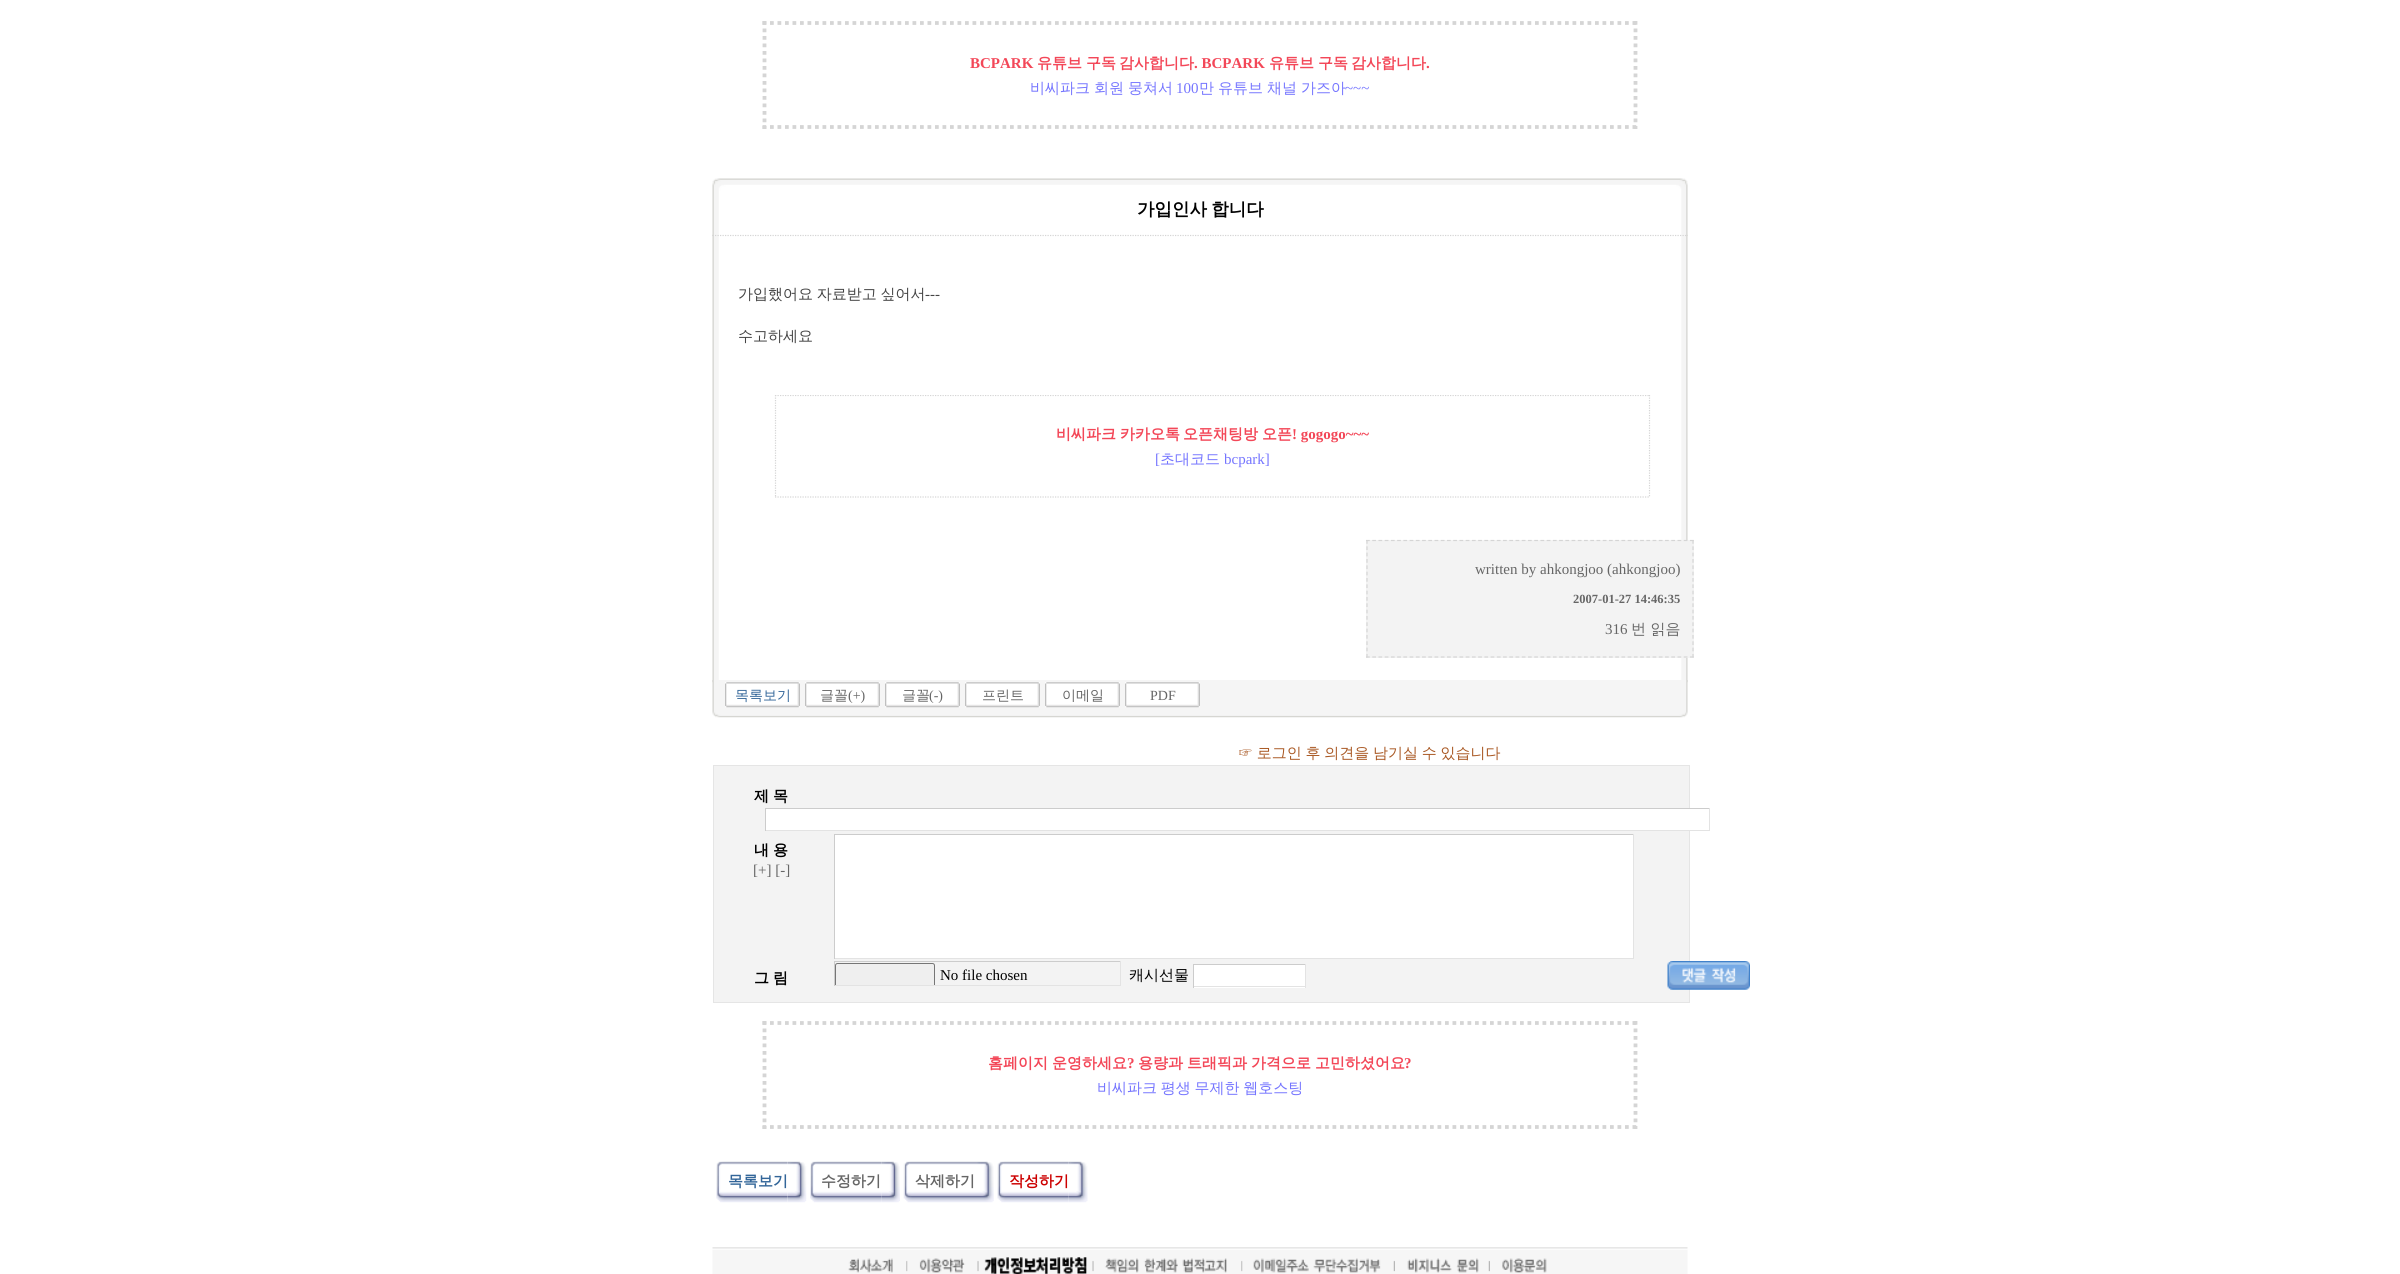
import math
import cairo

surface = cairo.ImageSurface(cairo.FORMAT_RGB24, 2400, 1274)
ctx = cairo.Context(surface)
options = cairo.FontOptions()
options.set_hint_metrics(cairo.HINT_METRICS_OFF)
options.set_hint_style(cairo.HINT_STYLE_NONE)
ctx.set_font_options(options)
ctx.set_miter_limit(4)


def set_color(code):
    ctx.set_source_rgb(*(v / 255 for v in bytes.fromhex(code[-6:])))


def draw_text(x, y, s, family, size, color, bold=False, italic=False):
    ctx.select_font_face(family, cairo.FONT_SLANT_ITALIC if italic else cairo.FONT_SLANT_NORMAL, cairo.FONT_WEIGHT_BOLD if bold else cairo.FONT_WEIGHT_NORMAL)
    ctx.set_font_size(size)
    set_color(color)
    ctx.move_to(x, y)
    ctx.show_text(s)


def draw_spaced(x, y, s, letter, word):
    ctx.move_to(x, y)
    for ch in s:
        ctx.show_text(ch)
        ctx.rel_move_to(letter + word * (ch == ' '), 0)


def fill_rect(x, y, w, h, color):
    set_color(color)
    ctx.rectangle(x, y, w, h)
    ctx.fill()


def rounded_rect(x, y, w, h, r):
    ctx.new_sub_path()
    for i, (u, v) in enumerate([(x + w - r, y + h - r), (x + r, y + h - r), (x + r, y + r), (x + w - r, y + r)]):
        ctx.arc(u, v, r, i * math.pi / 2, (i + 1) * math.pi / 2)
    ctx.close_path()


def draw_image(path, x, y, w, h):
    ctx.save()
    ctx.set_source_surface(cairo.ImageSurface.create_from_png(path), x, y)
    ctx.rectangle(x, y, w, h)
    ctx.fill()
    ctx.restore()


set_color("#ffffff")
ctx.paint()
ctx.new_path()
ctx.move_to(762.5, 23)
ctx.line_to(1637.5, 23)
set_color("#d5d5d5")
ctx.set_line_width(3.8)
ctx.set_dash([3.75, 3.75])
ctx.stroke()
ctx.new_path()
ctx.move_to(1635.5, 21)
ctx.line_to(1635.5, 129)
ctx.stroke()
ctx.new_path()
ctx.move_to(762.5, 127)
ctx.line_to(1637.5, 127)
ctx.stroke()
ctx.new_path()
ctx.move_to(764.5, 21)
ctx.line_to(764.5, 129)
ctx.stroke()
draw_text(970, 68, "BCPARK", "Liberation Serif", 15, "#f34758", bold=True)
draw_text(1037, 68, "유튜브", "WenQuanYi Zen Hei", 15, "#f34758", bold=True)
draw_text(1086, 68, "구독", "WenQuanYi Zen Hei", 15, "#f34758", bold=True)
draw_text(1119, 68, "감사합니다", "WenQuanYi Zen Hei", 15, "#f34758", bold=True)
draw_text(1194, 68, ". BCPARK", "Liberation Serif", 15, "#f34758", bold=True)
draw_text(1269, 68, "유튜브", "WenQuanYi Zen Hei", 15, "#f34758", bold=True)
draw_text(1318, 68, "구독", "WenQuanYi Zen Hei", 15, "#f34758", bold=True)
draw_text(1351, 68, "감사합니다", "WenQuanYi Zen Hei", 15, "#f34758", bold=True)
draw_text(1426, 68, ".", "Liberation Serif", 15, "#f34758", bold=True)
ctx.select_font_face("WenQuanYi Zen Hei Medium")
set_color("#7575ff")
draw_spaced(1030, 93, "비씨파크 회원 뭉쳐서", 0, -0.5)
draw_text(1176, 93, "100", "Liberation Serif", 15, "#7575ff")
ctx.select_font_face("WenQuanYi Zen Hei Medium")
draw_spaced(1199, 93, "만 유튜브 채널 가즈아", 0, -0.5)
draw_text(1345, 93, "~~~", "Liberation Serif", 15, "#7575ff")
draw_image("assets/img1.png", 712, 178, 976, 13)
draw_image("assets/img3.png", 712, 234, 976, 449)
draw_image("assets/img2.png", 712, 191, 976, 45)
ctx.new_path()
ctx.move_to(712.5, 235.5)
ctx.line_to(1687.5, 235.5)
set_color("#d5d5d5")
ctx.set_line_width(1.2)
ctx.set_dash([1.25, 1.25])
ctx.stroke()
ctx.select_font_face("WenQuanYi Zen Hei", cairo.FONT_SLANT_NORMAL, cairo.FONT_WEIGHT_BOLD)
ctx.set_font_size(17.5)
set_color("#000000")
draw_spaced(1137, 215, "가입인사 합니다", 0, -1)
ctx.new_path()
ctx.move_to(775, 395.5)
ctx.line_to(1650, 395.5)
set_color("#d5d5d5")
ctx.stroke()
fill_rect(775, 394, 874, 1, "#ffffff")
ctx.select_font_face("WenQuanYi Zen Hei Medium")
ctx.set_font_size(15)
set_color("#444444")
draw_spaced(738, 299, "가입했어요 자료받고 싶어서", 0, -0.75)
draw_text(925, 299, "---", "Liberation Serif", 15, "#444444")
draw_text(738, 341, "수고하세요", "WenQuanYi Zen Hei Medium", 15, "#444444")
ctx.new_path()
ctx.move_to(1649.5, 395)
ctx.line_to(1649.5, 497.5)
set_color("#d5d5d5")
ctx.stroke()
ctx.new_path()
ctx.move_to(775, 497)
ctx.line_to(1650, 497)
ctx.stroke()
ctx.new_path()
ctx.move_to(775.5, 395)
ctx.line_to(775.5, 497.5)
ctx.stroke()
draw_text(1056, 439, "비씨파크", "WenQuanYi Zen Hei", 15, "#f34758", bold=True)
draw_text(1120, 439, "카카오톡", "WenQuanYi Zen Hei", 15, "#f34758", bold=True)
draw_text(1183, 439, "오픈채팅방", "WenQuanYi Zen Hei", 15, "#f34758", bold=True)
draw_text(1262, 439, "오픈", "WenQuanYi Zen Hei", 15, "#f34758", bold=True)
draw_text(1292, 439, "! gogogo~~~", "Liberation Serif", 15, "#f34758", bold=True)
draw_text(1155, 464, "[", "Liberation Serif", 15, "#7575ff")
draw_text(1160, 464, "초대코드", "WenQuanYi Zen Hei Medium", 15, "#7575ff")
draw_text(1224, 464, "bcpark]", "Liberation Serif", 15, "#7575ff")
fill_rect(1366, 540, 328, 118, "#f3f3f3")
ctx.new_path()
ctx.move_to(1366, 540.5)
ctx.line_to(1694, 540.5)
set_color("#d5d5d5")
ctx.set_dash([3.75, 2.48])
ctx.stroke()
ctx.new_path()
ctx.move_to(1693, 540)
ctx.line_to(1693, 657.5)
ctx.set_dash([3.75, 2.58])
ctx.stroke()
ctx.new_path()
ctx.move_to(1366, 657)
ctx.line_to(1694, 657)
ctx.set_dash([3.75, 2.48])
ctx.stroke()
ctx.new_path()
ctx.move_to(1367, 540)
ctx.line_to(1367, 657.5)
ctx.set_dash([3.75, 2.58])
ctx.stroke()
draw_text(1475, 574, "written by ahkongjoo (ahkongjoo)", "Liberation Serif", 15, "#666666")
draw_text(1573, 603, "2007-01-27 14:46:35", "Liberation Serif", 12.5, "#666666", bold=True)
draw_text(1605, 634, "316", "Liberation Serif", 15, "#666666")
draw_text(1631, 634, "번 읽음", "WenQuanYi Zen Hei Medium", 15, "#666666")
draw_image("assets/img4.png", 712, 680, 976, 38)
draw_image("assets/img5.png", 725, 682, 75, 26)
draw_text(735, 700, "목록보기", "WenQuanYi Zen Hei Medium", 14, "#336699")
draw_image("assets/img6.png", 805, 682, 75, 26)
draw_text(820, 700, "글꼴", "WenQuanYi Zen Hei Medium", 14, "#666666")
draw_text(848, 700, "(+)", "Liberation Serif", 14, "#666666")
draw_image("assets/img5.png", 885, 682, 75, 26)
draw_text(902, 700, "글꼴", "WenQuanYi Zen Hei Medium", 14, "#666666")
draw_text(929, 700, "(-)", "Liberation Serif", 14, "#666666")
draw_image("assets/img5.png", 965, 682, 75, 26)
draw_text(982, 700, "프린트", "WenQuanYi Zen Hei Medium", 14, "#666666")
draw_image("assets/img5.png", 1045, 682, 75, 26)
draw_text(1062, 700, "이메일", "WenQuanYi Zen Hei Medium", 14, "#666666")
draw_image("assets/img6.png", 1125, 682, 75, 26)
draw_text(1150, 700, "PDF", "Liberation Serif", 14, "#666666")
ctx.select_font_face("WenQuanYi Zen Hei Medium")
ctx.set_font_size(15)
set_color("#a95823")
draw_spaced(1238, 758, "☞ 로그인 후 의견을 남기실 수 있습니다", 0, -0.75)
set_color("#f3f3f3")
ctx.rectangle(713.5, 765.5, 976, 237)
ctx.fill_preserve()
set_color("#e5e5e5")
ctx.set_line_width(1)
ctx.set_dash([])
ctx.stroke()
draw_text(754, 801, "제", "WenQuanYi Zen Hei", 15, "#000000", bold=True)
draw_text(773, 801, "목", "WenQuanYi Zen Hei", 15, "#000000", bold=True)
fill_rect(766, 809, 924, 21, "#ffffff")
fill_rect(765, 808, 945, 1, "#cccccc")
fill_rect(1709, 808, 1, 23, "#e3e3e3")
fill_rect(765, 830, 945, 1, "#e3e3e3")
fill_rect(765, 808, 1, 23, "#cccccc")
draw_text(754, 855, "내", "WenQuanYi Zen Hei", 15, "#000000", bold=True)
draw_text(773, 855, "용", "WenQuanYi Zen Hei", 15, "#000000", bold=True)
draw_text(753, 875, "[+] [-]", "Liberation Serif", 15, "#666666")
fill_rect(835, 835, 798, 123, "#ffffff")
fill_rect(834, 834, 800, 1, "#cccccc")
fill_rect(1633, 834, 1, 125, "#e3e3e3")
fill_rect(834, 958, 800, 1, "#e3e3e3")
fill_rect(834, 834, 1, 125, "#cccccc")
draw_text(754, 983, "그", "WenQuanYi Zen Hei", 15, "#000000", bold=True)
draw_text(773, 983, "림", "WenQuanYi Zen Hei", 15, "#000000", bold=True)
fill_rect(834, 961, 287, 1, "#cccccc")
fill_rect(1120, 961, 1, 25, "#e3e3e3")
fill_rect(834, 985, 287, 1, "#e3e3e3")
fill_rect(834, 961, 1, 25, "#cccccc")
set_color("#efefef")
ctx.new_path()
ctx.move_to(837.5, 963)
ctx.line_to(932.5, 963)
ctx.curve_to(934, 963, 935, 964, 935, 965.5)
ctx.line_to(935, 985)
ctx.line_to(835, 985)
ctx.line_to(835, 965.5)
ctx.curve_to(835, 964, 836, 963, 837.5, 963)
ctx.close_path()
ctx.fill()
ctx.save()
ctx.rectangle(835, 963, 285, 22)
ctx.clip()
rounded_rect(835.5, 963.5, 99, 24, 2)
set_color("#767676")
ctx.stroke()
ctx.restore()
draw_text(940, 980, "No file chosen", "Liberation Serif", 15, "#000000")
draw_text(1129, 980, "캐시선물", "WenQuanYi Zen Hei Medium", 15, "#000000")
fill_rect(1194, 965, 111, 23, "#ffffff")
fill_rect(1193, 964, 113, 1, "#cccccc")
fill_rect(1305, 964, 1, 24, "#e3e3e3")
fill_rect(1193, 986, 113, 1, "#e3e3e3")
fill_rect(1193, 964, 1, 24, "#cccccc")
draw_image("assets/img7.png", 1667, 961, 83, 29)
ctx.new_path()
ctx.move_to(762.5, 1023)
ctx.line_to(1637.5, 1023)
set_color("#d5d5d5")
ctx.set_line_width(3.8)
ctx.set_dash([3.75, 3.75])
ctx.stroke()
ctx.new_path()
ctx.move_to(1635.5, 1021)
ctx.line_to(1635.5, 1129)
ctx.stroke()
ctx.new_path()
ctx.move_to(762.5, 1127)
ctx.line_to(1637.5, 1127)
ctx.stroke()
ctx.new_path()
ctx.move_to(764.5, 1021)
ctx.line_to(764.5, 1129)
ctx.stroke()
ctx.select_font_face("WenQuanYi Zen Hei", cairo.FONT_SLANT_NORMAL, cairo.FONT_WEIGHT_BOLD)
set_color("#f34758")
draw_spaced(988, 1068, "홈페이지 운영하세요", 0, -0.5)
draw_text(1127, 1068, "?", "Liberation Serif", 15, "#f34758", bold=True)
ctx.select_font_face("WenQuanYi Zen Hei", cairo.FONT_SLANT_NORMAL, cairo.FONT_WEIGHT_BOLD)
draw_spaced(1138, 1068, "용량과 트래픽과 가격으로 고민하셨어요", 0, -0.5)
draw_text(1404, 1068, "?", "Liberation Serif", 15, "#f34758", bold=True)
ctx.select_font_face("WenQuanYi Zen Hei Medium")
set_color("#7575ff")
draw_spaced(1097, 1093, "비씨파크 평생 무제한 웹호스팅", 0, -0.75)
draw_image("assets/img8.png", 716, 1161, 72, 42)
draw_text(728, 1186, "목록보기", "WenQuanYi Zen Hei", 15, "#336699", bold=True)
draw_image("assets/img9.png", 787, 1161, 20, 42)
draw_image("assets/img10.png", 810, 1161, 72, 42)
draw_text(821, 1186, "수정하기", "WenQuanYi Zen Hei", 15, "#666666", bold=True)
draw_image("assets/img11.png", 881, 1161, 19, 42)
draw_image("assets/img12.png", 903, 1161, 72, 42)
draw_text(915, 1186, "삭제하기", "WenQuanYi Zen Hei", 15, "#666666", bold=True)
draw_image("assets/img13.png", 975, 1161, 19, 42)
draw_image("assets/img14.png", 997, 1161, 72, 42)
draw_text(1009, 1186, "작성하기", "WenQuanYi Zen Hei", 15, "#cc0000", bold=True)
draw_image("assets/img15.png", 1068, 1161, 20, 42)
draw_image("assets/img16.png", 712, 1247, 976, 27)
draw_image("assets/img17.png", 848, 1258, 60, 15)
draw_image("assets/img18.png", 907, 1258, 72, 15)
draw_image("assets/img19.png", 978, 1257, 116, 17)
draw_image("assets/img20.png", 1093, 1258, 150, 15)
draw_image("assets/img21.png", 1242, 1258, 153, 15)
draw_image("assets/img22.png", 1407, 1258, 83, 15)
draw_image("assets/img23.png", 1502, 1258, 45, 15)
surface.write_to_png("output.png")
